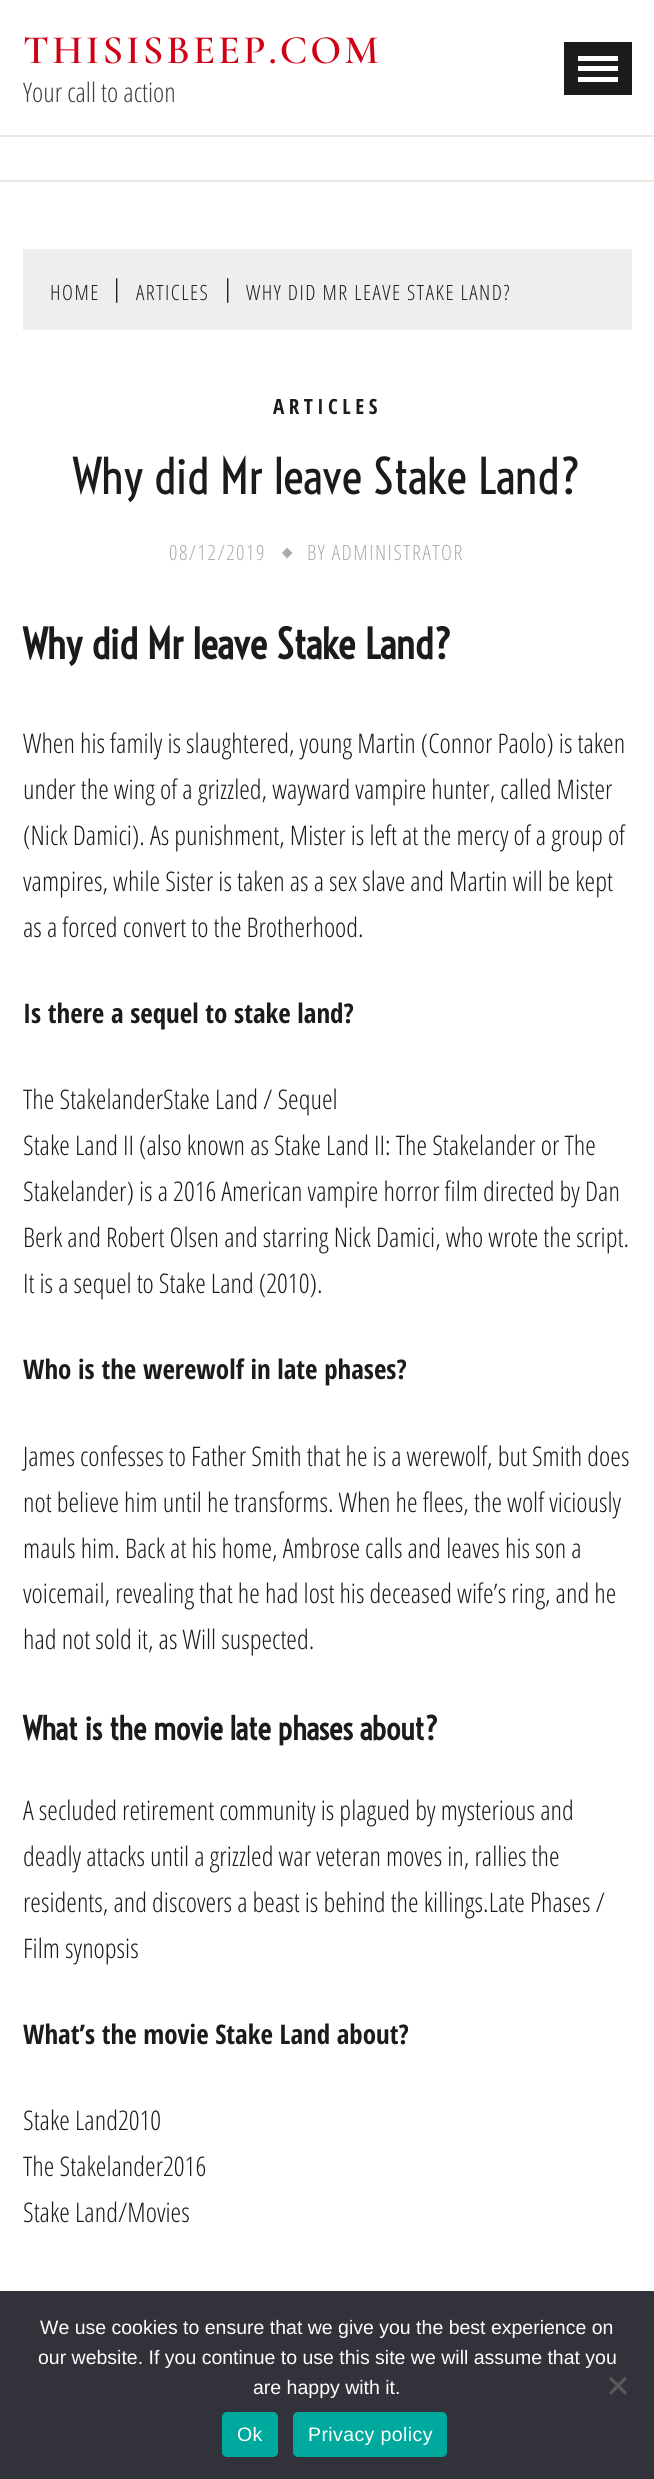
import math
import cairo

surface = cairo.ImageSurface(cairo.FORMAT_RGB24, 654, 2479)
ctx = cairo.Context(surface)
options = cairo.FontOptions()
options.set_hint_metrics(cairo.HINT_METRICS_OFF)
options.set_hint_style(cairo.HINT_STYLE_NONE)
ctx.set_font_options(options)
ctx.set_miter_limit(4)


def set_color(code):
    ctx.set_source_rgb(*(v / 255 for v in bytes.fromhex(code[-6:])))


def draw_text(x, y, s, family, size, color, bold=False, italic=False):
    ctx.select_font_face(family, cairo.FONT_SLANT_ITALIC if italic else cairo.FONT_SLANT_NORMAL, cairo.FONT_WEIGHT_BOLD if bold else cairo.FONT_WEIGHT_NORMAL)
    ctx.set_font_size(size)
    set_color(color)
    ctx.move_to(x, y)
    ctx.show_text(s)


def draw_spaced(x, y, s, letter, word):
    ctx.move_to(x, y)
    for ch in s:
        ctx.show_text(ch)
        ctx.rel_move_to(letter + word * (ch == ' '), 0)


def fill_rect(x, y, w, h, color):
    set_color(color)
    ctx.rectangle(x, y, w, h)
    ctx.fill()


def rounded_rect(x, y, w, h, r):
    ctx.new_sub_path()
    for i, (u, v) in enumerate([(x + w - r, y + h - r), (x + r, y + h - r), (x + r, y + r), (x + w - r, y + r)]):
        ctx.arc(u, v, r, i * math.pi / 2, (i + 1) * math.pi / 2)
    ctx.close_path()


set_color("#ffffff")
ctx.paint()
ctx.select_font_face("Cormorant Garamond SemiBold")
ctx.set_font_size(40.5)
set_color("#d10014")
draw_spaced(23, 63, "THISISBEEP.COM", 3, 0)
draw_text(23, 102, "Your call to action", "Open Sans Condensed Light", 27, "#404040")
fill_rect(564, 42, 68, 53, "#1b1b1b")
fill_rect(578, 56, 40, 5, "#ffffff")
fill_rect(578, 66, 40, 5, "#ffffff")
fill_rect(578, 77, 40, 5, "#ffffff")
fill_rect(0, 135, 654, 2, "#eee6e2")
fill_rect(0, 180, 654, 2, "#eee6e2")
fill_rect(23, 249, 609, 81, "#eeeeee")
ctx.set_font_size(21)
set_color("#1b1b1b")
draw_spaced(50, 300, "HOME", 1.5, 0)
ctx.select_font_face("Liberation Serif")
ctx.set_font_size(27)
draw_spaced(114, 297, "|", 1.5, 0)
ctx.select_font_face("Open Sans Condensed Light")
ctx.set_font_size(21)
draw_spaced(136, 300, "ARTICLES", 1.5, 0)
ctx.select_font_face("Liberation Serif")
ctx.set_font_size(27)
draw_spaced(225, 297, "|", 1.5, 0)
ctx.select_font_face("Open Sans Condensed Light")
ctx.set_font_size(21)
draw_spaced(246, 300, "WHY DID MR LEAVE STAKE LAND?", 1.5, 0)
ctx.select_font_face("Open Sans Condensed", cairo.FONT_SLANT_NORMAL, cairo.FONT_WEIGHT_BOLD)
draw_spaced(273, 414, "ARTICLES", 4.5, 0)
draw_text(73, 494, "Why did Mr leave Stake Land?", "Voltaire", 48, "#1b1b1b")
ctx.select_font_face("Open Sans Condensed Light")
ctx.set_font_size(21)
set_color("#ababab")
draw_spaced(169, 560, "08/12/2019", 1.5, 0)
ctx.new_path()
ctx.move_to(287, 547.5)
ctx.line_to(292.5, 553)
ctx.line_to(287, 558.5)
ctx.line_to(282, 553)
ctx.close_path()
ctx.fill()
draw_spaced(307, 560, "BY ADMINISTRATOR", 1.5, 0)
draw_text(23, 659, "Why did Mr leave Stake Land?", "Voltaire", 40.5, "#1b1b1b", bold=True)
draw_text(23, 753, "When his family is slaughtered, young Martin (Connor Paolo) is taken", "Open Sans Condensed Light", 27, "#1b1b1b")
draw_text(23, 799, "under the wing of a grizzled, wayward vampire hunter, called Mister", "Open Sans Condensed Light", 27, "#1b1b1b")
draw_text(23, 845, "(Nick Damici). As punishment, Mister is left at the mercy of a group of", "Open Sans Condensed Light", 27, "#1b1b1b")
draw_text(23, 891, "vampires, while Sister is taken as a sex slave and Martin will be kept", "Open Sans Condensed Light", 27, "#1b1b1b")
draw_text(23, 937, "as a forced convert to the Brotherhood.", "Open Sans Condensed Light", 27, "#1b1b1b")
draw_text(23, 1023, "Is there a sequel to stake land?", "Open Sans Condensed", 27, "#1b1b1b", bold=True)
draw_text(23, 1109, "The StakelanderStake Land / Sequel", "Open Sans Condensed Light", 27, "#1b1b1b")
draw_text(23, 1155, "Stake Land II (also known as Stake Land II: The Stakelander or The", "Open Sans Condensed Light", 27, "#1b1b1b")
draw_text(23, 1201, "Stakelander) is a 2016 American vampire horror film directed by Dan", "Open Sans Condensed Light", 27, "#1b1b1b")
draw_text(23, 1247, "Berk and Robert Olsen and starring Nick Damici, who wrote the script.", "Open Sans Condensed Light", 27, "#1b1b1b")
draw_text(23, 1293, "It is a sequel to Stake Land (2010).", "Open Sans Condensed Light", 27, "#1b1b1b")
draw_text(23, 1379, "Who is the werewolf in late phases?", "Open Sans Condensed", 27, "#1b1b1b", bold=True)
draw_text(23, 1466, "James confesses to Father Smith that he is a werewolf, but Smith does", "Open Sans Condensed Light", 27, "#1b1b1b")
draw_text(23, 1512, "not believe him until he transforms. When he flees, the wolf viciously", "Open Sans Condensed Light", 27, "#1b1b1b")
draw_text(23, 1558, "mauls him. Back at his home, Ambrose calls and leaves his son a", "Open Sans Condensed Light", 27, "#1b1b1b")
draw_text(23, 1603, "voicemail, revealing that he had lost his deceased wife’s ring, and he", "Open Sans Condensed Light", 27, "#1b1b1b")
draw_text(23, 1649, "had not sold it, as Will suspected.", "Open Sans Condensed Light", 27, "#1b1b1b")
draw_text(23, 1740, "What is the movie late phases about?", "Voltaire", 31.25, "#1b1b1b", bold=True)
draw_text(23, 1820, "A secluded retirement community is plagued by mysterious and", "Open Sans Condensed Light", 27, "#1b1b1b")
draw_text(23, 1866, "deadly attacks until a grizzled war veteran moves in, rallies the", "Open Sans Condensed Light", 27, "#1b1b1b")
draw_text(23, 1912, "residents, and discovers a beast is behind the killings.Late Phases /", "Open Sans Condensed Light", 27, "#1b1b1b")
draw_text(23, 1958, "Film synopsis", "Open Sans Condensed Light", 27, "#1b1b1b")
draw_text(23, 2044, "What’s the movie Stake Land about?", "Open Sans Condensed", 27, "#1b1b1b", bold=True)
draw_text(23, 2130, "Stake Land2010", "Open Sans Condensed Light", 27, "#1b1b1b")
draw_text(23, 2176, "The Stakelander2016", "Open Sans Condensed Light", 27, "#1b1b1b")
draw_text(23, 2222, "Stake Land/Movies", "Open Sans Condensed Light", 27, "#1b1b1b")
fill_rect(0, 2291, 654, 188, "#32323a")
draw_text(40, 2334, "We use cookies to ensure that we give you the best experience on", "Liberation Sans", 19.5, "#ffffff")
draw_text(38, 2364, "our website. If you continue to use this site we will assume that you", "Liberation Sans", 19.5, "#ffffff")
draw_text(253, 2394, "are happy with it.", "Liberation Sans", 19.5, "#ffffff")
set_color("#59595d")
ctx.new_path()
ctx.move_to(625, 2376.5)
ctx.line_to(627, 2379)
ctx.line_to(611, 2395)
ctx.line_to(609, 2392.5)
ctx.close_path()
ctx.fill()
ctx.new_path()
ctx.move_to(609, 2379)
ctx.line_to(611, 2376.5)
ctx.line_to(627, 2392.5)
ctx.line_to(625, 2395)
ctx.close_path()
ctx.fill()
set_color("#00a99d")
rounded_rect(222, 2412, 56, 45, 5)
ctx.fill()
set_color("#ffffff")
draw_spaced(237, 2441, "Ok", 0.4, 0)
set_color("#00a99d")
rounded_rect(293, 2412, 154, 45, 5)
ctx.fill()
set_color("#ffffff")
draw_spaced(308, 2441, "Privacy policy", 0.4, 0)
surface.write_to_png("output.png")
